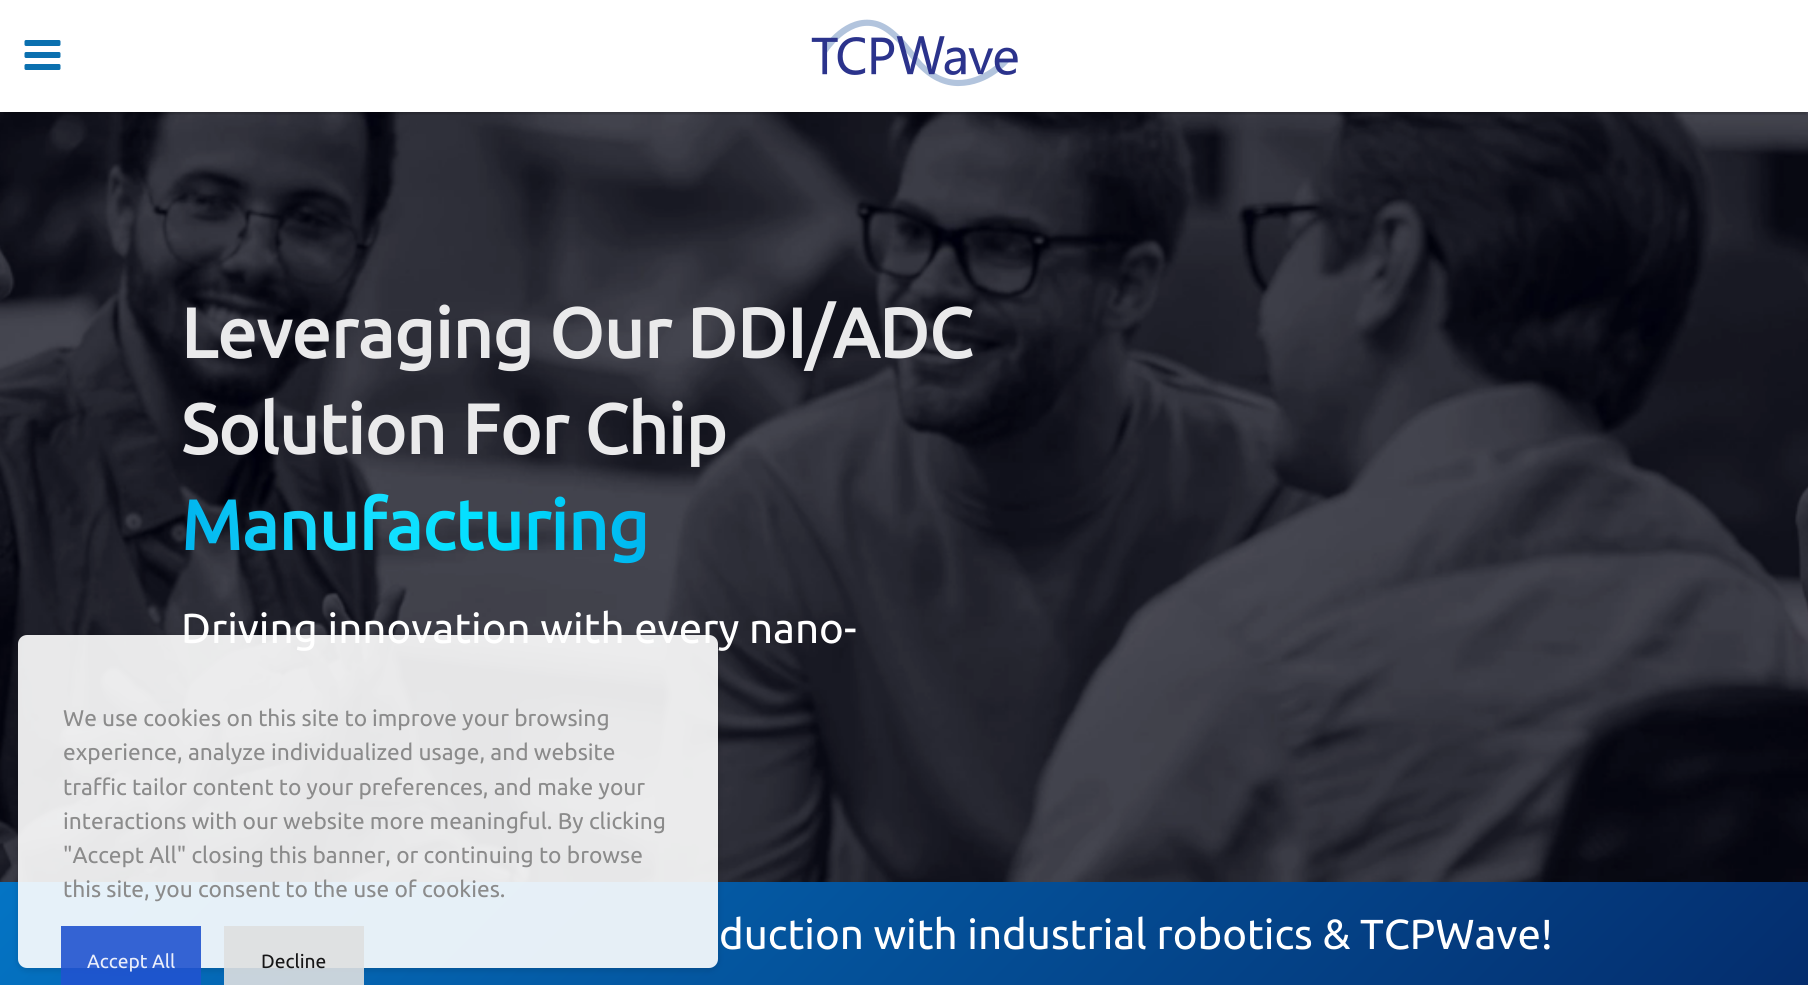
import math
import cairo

surface = cairo.ImageSurface(cairo.FORMAT_RGB24, 1808, 985)
ctx = cairo.Context(surface)
options = cairo.FontOptions()
options.set_hint_metrics(cairo.HINT_METRICS_OFF)
options.set_hint_style(cairo.HINT_STYLE_NONE)
ctx.set_font_options(options)
ctx.set_miter_limit(4)


def set_color(code):
    ctx.set_source_rgb(*(v / 255 for v in bytes.fromhex(code[-6:])))


def draw_text(x, y, s, family, size, color, bold=False, italic=False):
    ctx.select_font_face(family, cairo.FONT_SLANT_ITALIC if italic else cairo.FONT_SLANT_NORMAL, cairo.FONT_WEIGHT_BOLD if bold else cairo.FONT_WEIGHT_NORMAL)
    ctx.set_font_size(size)
    set_color(color)
    ctx.move_to(x, y)
    ctx.show_text(s)


def rounded_rect(x, y, w, h, r):
    ctx.new_sub_path()
    for i, (u, v) in enumerate([(x + w - r, y + h - r), (x + r, y + h - r), (x + r, y + r), (x + w - r, y + r)]):
        ctx.arc(u, v, r, i * math.pi / 2, (i + 1) * math.pi / 2)
    ctx.close_path()


def draw_shadow(x, y, w, h, r, blur, alpha):
    ctx.push_group_with_content(cairo.CONTENT_ALPHA)
    ctx.set_operator(cairo.OPERATOR_SOURCE)
    for i in range(15, -16, -2):
        e = blur * i / 6
        if min(w, h) + 2 * e > 0:
            ctx.set_source_rgba(0, 0, 0, alpha * math.erfc((i - 1) / 8.5) / 2)
            rounded_rect(x - e, y - e, w + 2 * e, h + 2 * e, max(0, min(r + e + blur * .6, min(w, h) / 2 + e)))
            ctx.fill()
    ctx.mask(ctx.pop_group())


def draw_image(path, x, y, w, h):
    ctx.save()
    ctx.set_source_surface(cairo.ImageSurface.create_from_png(path), x, y)
    ctx.rectangle(x, y, w, h)
    ctx.fill()
    ctx.restore()


set_color("#ffffff")
ctx.paint()
draw_image("assets/img3.png", 0, 112, 1808, 770)
ctx.save()
ctx.rectangle(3, 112, 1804, 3)
ctx.clip()
set_color("#000000")
draw_shadow(4, 9, 1802, 105, 0, 1, 0.2)
ctx.restore()
draw_image("assets/img1.png", 24, 40, 37, 30)
draw_image("assets/img2.png", 811, 19, 207, 68)
draw_text(181, 358, "Leveraging Our DDI/ADC", "Ubuntu", 70, "#eaeaeb", bold=True)
draw_text(181, 454, "Solution For Chip", "Ubuntu", 70, "#eaeaeb", bold=True)
gradient = cairo.LinearGradient(181, 525, 649, 525)
gradient.add_color_stop_rgba(0, 0, 0.706, 0.933, 1)
gradient.add_color_stop_rgba(0.33, 0.102, 0.875, 1, 1)
gradient.add_color_stop_rgba(0.67, 0, 0.878, 1, 1)
gradient.add_color_stop_rgba(1, 0, 0.706, 0.933, 1)
ctx.set_source(gradient)
ctx.move_to(181, 550)
ctx.show_text("Manufacturing")
draw_text(181, 643, "Driving innovation with every nano-", "Ubuntu", 42, "#ffffff")
gradient = cairo.LinearGradient(1388, 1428, 421, 461)
gradient.add_color_stop_rgba(0, 0.016, 0.173, 0.424, 1)
gradient.add_color_stop_rgba(1, 0.016, 0.455, 0.769, 1)
ctx.set_source(gradient)
ctx.rectangle(0, 882, 1808, 103)
ctx.fill()
ctx.save()
ctx.set_fill_rule(cairo.FILL_RULE_EVEN_ODD)
ctx.new_path()
ctx.move_to(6, 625)
ctx.line_to(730, 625)
ctx.line_to(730, 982)
ctx.line_to(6, 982)
ctx.close_path()
ctx.move_to(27, 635)
ctx.line_to(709, 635)
ctx.curve_to(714, 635, 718, 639, 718, 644)
ctx.line_to(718, 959)
ctx.curve_to(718, 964, 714, 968, 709, 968)
ctx.line_to(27, 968)
ctx.curve_to(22, 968, 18, 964, 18, 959)
ctx.line_to(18, 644)
ctx.curve_to(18, 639, 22, 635, 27, 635)
ctx.close_path()
ctx.clip()
set_color("#000000")
draw_shadow(18, 637, 700, 333, 9, 3.5, 0.14)
ctx.restore()
ctx.set_source_rgba(1, 1, 1, 0.9)
rounded_rect(18, 635, 700, 333, 9)
ctx.fill()
draw_text(63, 726, "We use cookies on this site to", "Ubuntu", 22.75, "#8b8b8b")
draw_text(372, 726, "improve your browsing", "Ubuntu", 22.75, "#8b8b8b")
draw_text(63, 760, "experience, analyze individualized usage, and website", "Ubuntu", 22.75, "#8b8b8b")
draw_text(63, 795, "traffic tailor content to your preferences, and make your", "Ubuntu", 22.75, "#8b8b8b")
draw_text(63, 829, "interactions with our website more meaningful. By clicking", "Ubuntu", 22.75, "#8b8b8b")
draw_text(63, 863, "\"Accept All\" closing this banner, or continuing to browse", "Ubuntu", 22.75, "#8b8b8b")
draw_text(63, 897, "this site, you consent to the use of cookies.", "Ubuntu", 22.75, "#8b8b8b")
ctx.set_source_rgba(0.129, 0.329, 0.812, 0.9)
ctx.rectangle(61, 926, 140, 59)
ctx.fill()
draw_text(87, 968, "Accept All", "Ubuntu", 19.25, "#ebeffb")
ctx.set_source_rgba(0.871, 0.875, 0.878, 0.9)
ctx.rectangle(224, 926, 140, 59)
ctx.fill()
draw_text(261, 968, "Decline", "Ubuntu", 19.25, "#161617")
draw_text(719, 949, "duction with industrial robotics & TCPWave!", "Ubuntu", 42, "#ffffff")
surface.write_to_png("output.png")
